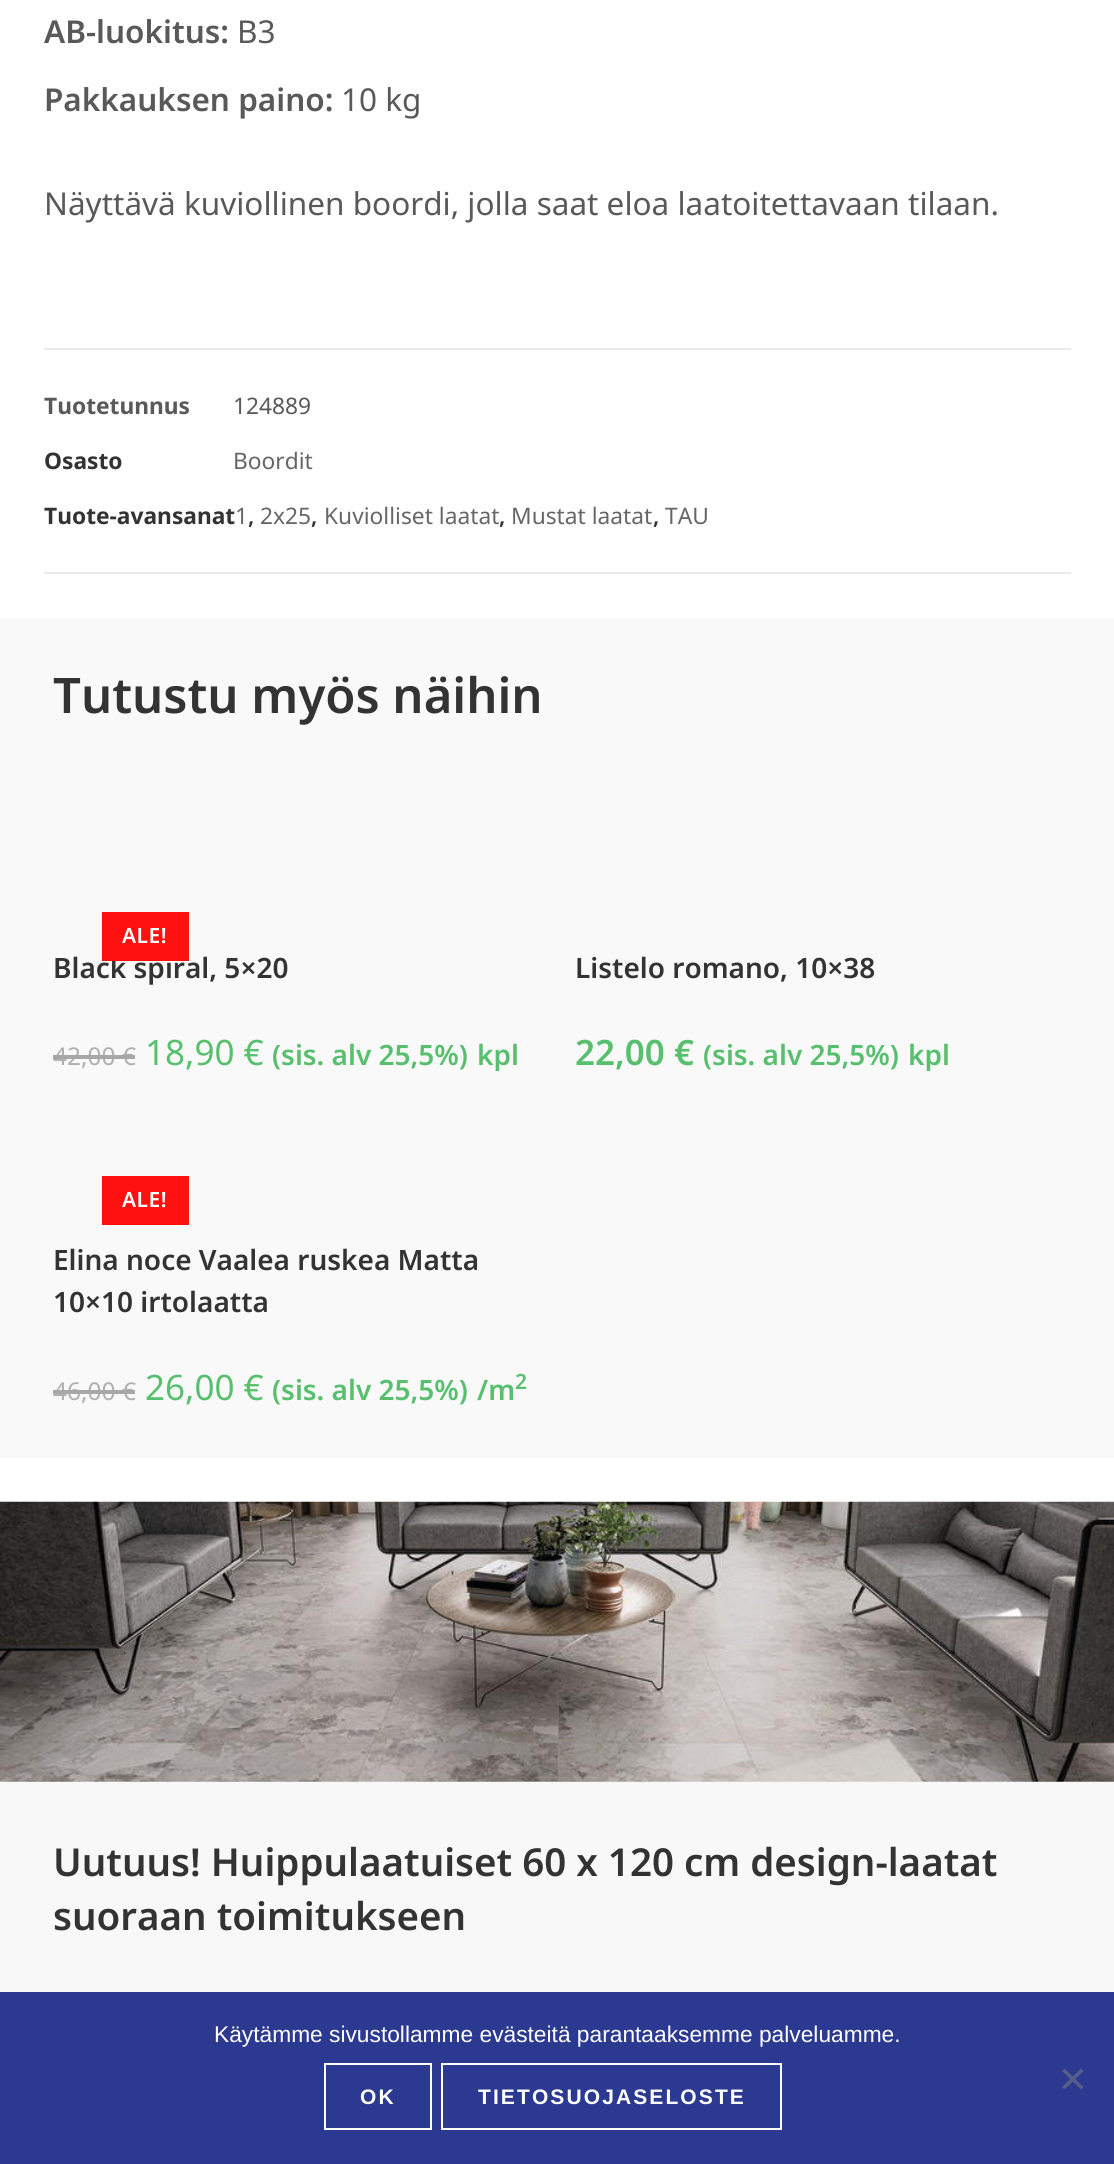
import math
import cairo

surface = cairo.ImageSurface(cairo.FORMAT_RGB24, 1114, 2164)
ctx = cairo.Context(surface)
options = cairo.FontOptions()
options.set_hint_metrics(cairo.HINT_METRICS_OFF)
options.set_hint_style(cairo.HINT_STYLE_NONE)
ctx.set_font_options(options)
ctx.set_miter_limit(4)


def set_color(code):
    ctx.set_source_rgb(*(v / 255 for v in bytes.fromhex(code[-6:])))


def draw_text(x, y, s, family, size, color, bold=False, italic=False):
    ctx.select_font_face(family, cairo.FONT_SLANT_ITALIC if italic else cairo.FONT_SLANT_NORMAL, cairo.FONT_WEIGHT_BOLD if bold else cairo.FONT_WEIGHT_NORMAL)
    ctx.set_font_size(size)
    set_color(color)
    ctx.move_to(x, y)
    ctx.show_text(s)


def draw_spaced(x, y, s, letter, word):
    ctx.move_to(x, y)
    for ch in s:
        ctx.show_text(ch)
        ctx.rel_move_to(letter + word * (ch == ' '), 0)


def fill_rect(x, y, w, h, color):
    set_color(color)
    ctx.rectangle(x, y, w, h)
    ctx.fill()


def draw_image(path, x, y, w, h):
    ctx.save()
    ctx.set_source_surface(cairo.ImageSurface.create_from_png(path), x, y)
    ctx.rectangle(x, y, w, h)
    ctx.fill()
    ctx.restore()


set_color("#ffffff")
ctx.paint()
draw_text(44, 43, "AB-luokitus:", "Noto Sans SemiBold", 31.5, "#595959")
draw_text(237, 43, "B3", "Noto Sans", 31.5, "#595959")
draw_text(44, 111, "Pakkauksen paino:", "Noto Sans SemiBold", 31.5, "#595959")
draw_text(341, 111, "10 kg", "Noto Sans", 31.5, "#595959")
draw_text(44, 215, "Näyttävä kuviollinen boordi, jolla saat eloa laatoitettavaan tilaan.", "Noto Sans", 31.5, "#595959")
fill_rect(44, 348, 1027, 2, "#eaeaea")
fill_rect(44, 572, 1027, 2, "#eaeaea")
draw_text(44, 414, "Tuotetunnus", "Noto Sans", 22.75, "#595959", bold=True)
draw_text(233, 414, "124889", "Noto Sans", 22.75, "#595959")
draw_text(44, 469, "Osasto", "Noto Sans", 22.75, "#333333", bold=True)
draw_text(233, 469, "Boordit", "Noto Sans", 22.75, "#666666")
draw_text(44, 524, "Tuote-avansanat", "Noto Sans", 22.75, "#333333", bold=True)
draw_text(235, 524, "1", "Noto Sans", 22.75, "#666666")
draw_text(248, 524, ",", "Noto Sans SemiBold", 22.75, "#333333")
draw_text(260, 524, "2x25", "Noto Sans", 22.75, "#666666")
draw_text(311, 524, ",", "Noto Sans SemiBold", 22.75, "#333333")
draw_text(324, 524, "Kuviolliset laatat", "Noto Sans", 22.75, "#666666")
draw_text(499, 524, ",", "Noto Sans SemiBold", 22.75, "#333333")
draw_text(511, 524, "Mustat laatat", "Noto Sans", 22.75, "#666666")
draw_text(653, 524, ",", "Noto Sans SemiBold", 22.75, "#333333")
draw_text(665, 524, "TAU", "Noto Sans", 22.75, "#666666")
fill_rect(0, 618, 1114, 840, "#f9f9f9")
draw_text(53, 713, "Tutustu myös näihin", "Noto Sans SemiBold", 49, "#333333")
draw_text(53, 978, "Black spiral, 5×20", "Noto Sans SemiBold", 28, "#333333")
fill_rect(102, 912, 87, 49, "#ff1111")
ctx.set_font_size(21)
set_color("#ffffff")
draw_spaced(122, 943, "ALE!", 0.5, 0)
draw_text(53, 1065, "42,00 €", "Noto Sans", 24.5, "#b0b0b0")
fill_rect(53, 1055, 82, 4, "#a7a7a7")
draw_text(145, 1065, "18,90 €", "Noto Sans", 35, "#57bf6d")
draw_text(272, 1065, "(sis. alv 25,5%)", "Noto Sans SemiBold", 28, "#57bf6d")
ctx.save()
ctx.rectangle(53, 877, 488, 194)
ctx.clip()
draw_text(477, 1065, "kpl", "Noto Sans SemiBold", 28, "#57bf6d")
ctx.restore()
draw_text(575, 978, "Listelo romano, 10×38", "Noto Sans SemiBold", 28, "#333333")
draw_text(575, 1065, "22,00 €", "Noto Sans SemiBold", 35, "#57bf6d")
draw_text(703, 1065, "(sis. alv 25,5%)", "Noto Sans SemiBold", 28, "#57bf6d")
ctx.save()
ctx.rectangle(576, 877, 486, 194)
ctx.clip()
draw_text(908, 1065, "kpl", "Noto Sans SemiBold", 28, "#57bf6d")
ctx.restore()
fill_rect(102, 1176, 87, 49, "#ff1111")
ctx.set_font_size(21)
set_color("#ffffff")
draw_spaced(122, 1207, "ALE!", 0.5, 0)
draw_text(53, 1270, "Elina noce Vaalea ruskea Matta", "Noto Sans SemiBold", 28, "#333333")
draw_text(53, 1312, "10×10 irtolaatta", "Noto Sans SemiBold", 28, "#333333")
draw_text(53, 1400, "46,00 €", "Noto Sans", 24.5, "#b0b0b0")
fill_rect(53, 1390, 82, 4, "#a7a7a7")
draw_text(145, 1400, "26,00 €", "Noto Sans", 35, "#57bf6d")
draw_text(272, 1400, "(sis. alv 25,5%)", "Noto Sans SemiBold", 28, "#57bf6d")
draw_text(477, 1400, "/m", "Noto Sans SemiBold", 28, "#57bf6d")
draw_text(515, 1389, "2", "Noto Sans SemiBold", 21, "#57bf6d")
fill_rect(0, 1781, 1114, 211, "#f8f8f8")
draw_image("assets/img1.png", 0, 1501, 1114, 281)
draw_text(53, 1876, "Uutuus! Huippulaatuiset 60 x 120 cm design-laatat", "Noto Sans SemiBold", 38.5, "#333333")
draw_text(53, 1930, "suoraan toimitukseen", "Noto Sans SemiBold", 38.5, "#333333")
fill_rect(0, 1992, 1114, 172, "#2b3991")
draw_text(214, 2042, "Käytämme sivustollamme evästeitä parantaaksemme palveluamme.", "Liberation Sans", 22.75, "#ffffff")
set_color("#565d89")
ctx.new_path()
ctx.move_to(1081, 2068.5)
ctx.line_to(1083.5, 2071)
ctx.line_to(1064.5, 2089.5)
ctx.line_to(1062, 2087)
ctx.close_path()
ctx.fill()
ctx.new_path()
ctx.move_to(1062, 2071)
ctx.line_to(1064.5, 2068.5)
ctx.line_to(1083.5, 2087)
ctx.line_to(1081, 2089.5)
ctx.close_path()
ctx.fill()
ctx.rectangle(325, 2064, 106, 65)
set_color("#ffffff")
ctx.stroke()
ctx.select_font_face("Liberation Sans", cairo.FONT_SLANT_NORMAL, cairo.FONT_WEIGHT_BOLD)
ctx.set_font_size(21)
draw_spaced(360, 2104, "OK", 2.1, 0)
ctx.rectangle(442, 2064, 339, 65)
ctx.stroke()
draw_spaced(478, 2104, "TIETOSUOJASELOSTE", 2.1, 0)
surface.write_to_png("output.png")
